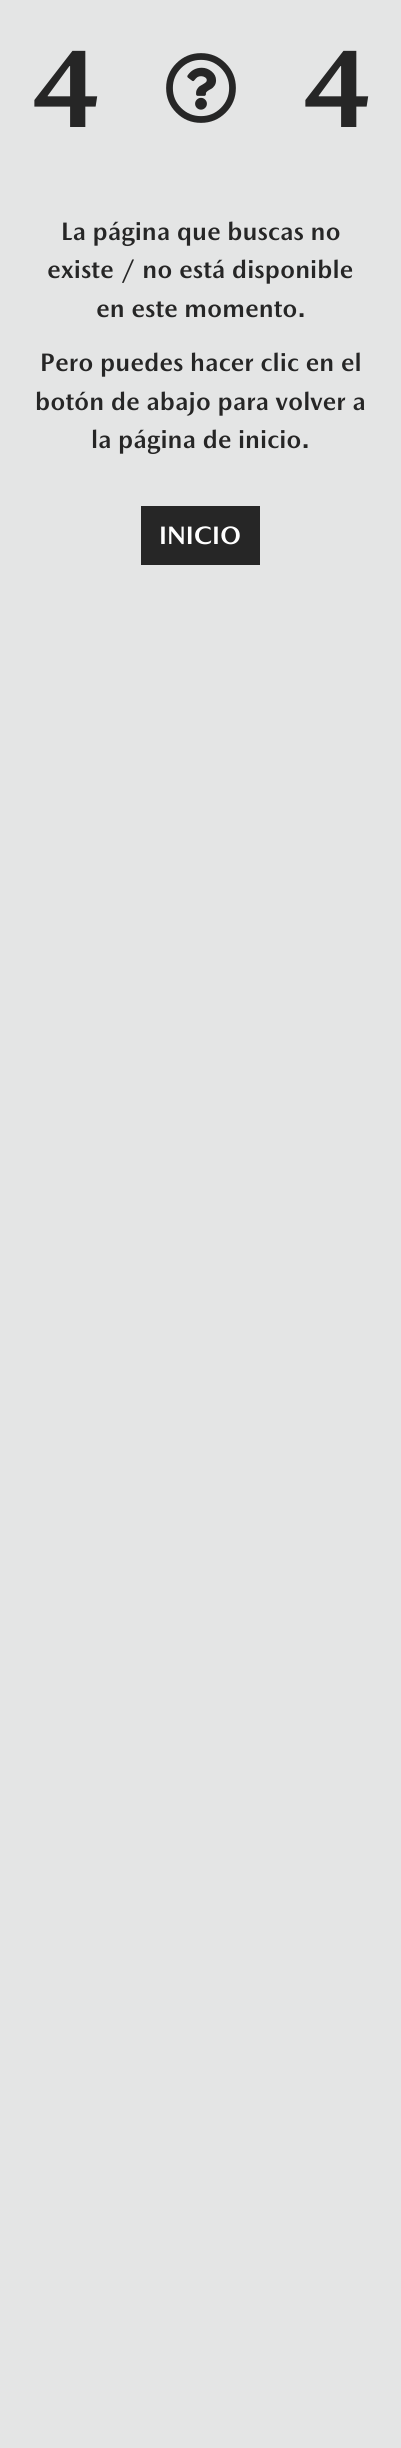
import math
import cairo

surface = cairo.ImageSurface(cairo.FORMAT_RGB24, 401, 2448)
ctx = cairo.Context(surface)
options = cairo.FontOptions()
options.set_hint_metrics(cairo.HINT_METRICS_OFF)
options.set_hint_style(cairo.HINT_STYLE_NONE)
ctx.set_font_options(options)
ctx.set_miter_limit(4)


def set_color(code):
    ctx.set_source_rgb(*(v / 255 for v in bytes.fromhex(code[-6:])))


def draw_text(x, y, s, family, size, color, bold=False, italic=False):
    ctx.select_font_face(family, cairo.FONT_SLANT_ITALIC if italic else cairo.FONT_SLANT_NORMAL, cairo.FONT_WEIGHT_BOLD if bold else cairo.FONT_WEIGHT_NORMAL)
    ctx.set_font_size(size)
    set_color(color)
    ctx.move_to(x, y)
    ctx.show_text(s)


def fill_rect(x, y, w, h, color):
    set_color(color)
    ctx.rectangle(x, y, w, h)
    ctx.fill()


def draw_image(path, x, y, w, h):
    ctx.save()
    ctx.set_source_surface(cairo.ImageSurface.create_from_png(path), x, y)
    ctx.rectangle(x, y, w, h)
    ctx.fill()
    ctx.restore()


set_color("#e4e5e5")
ctx.paint()
draw_text(30, 127, "4", "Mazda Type", 112, "#262626", bold=True)
draw_image("assets/img1.png", 166, 53, 70, 70)
draw_text(301, 127, "4", "Mazda Type", 112, "#262626", bold=True)
draw_text(61, 240, "La página que buscas no", "Mazda Type", 25.6, "#262626", bold=True)
draw_text(47, 278, "existe / no está disponible", "Mazda Type", 25.6, "#262626", bold=True)
draw_text(96, 317, "en este momento.", "Mazda Type", 25.6, "#262626", bold=True)
draw_text(40, 371, "Pero puedes hacer clic en el", "Mazda Type", 25.6, "#262626", bold=True)
draw_text(35, 410, "botón de abajo para volver a", "Mazda Type", 25.6, "#262626", bold=True)
draw_text(91, 448, "la página de inicio.", "Mazda Type", 25.6, "#262626", bold=True)
fill_rect(141, 506, 119, 59, "#262626")
draw_text(159, 544, "INICIO", "Mazda Type", 25.6, "#ffffff", bold=True)
surface.write_to_png("output.png")
